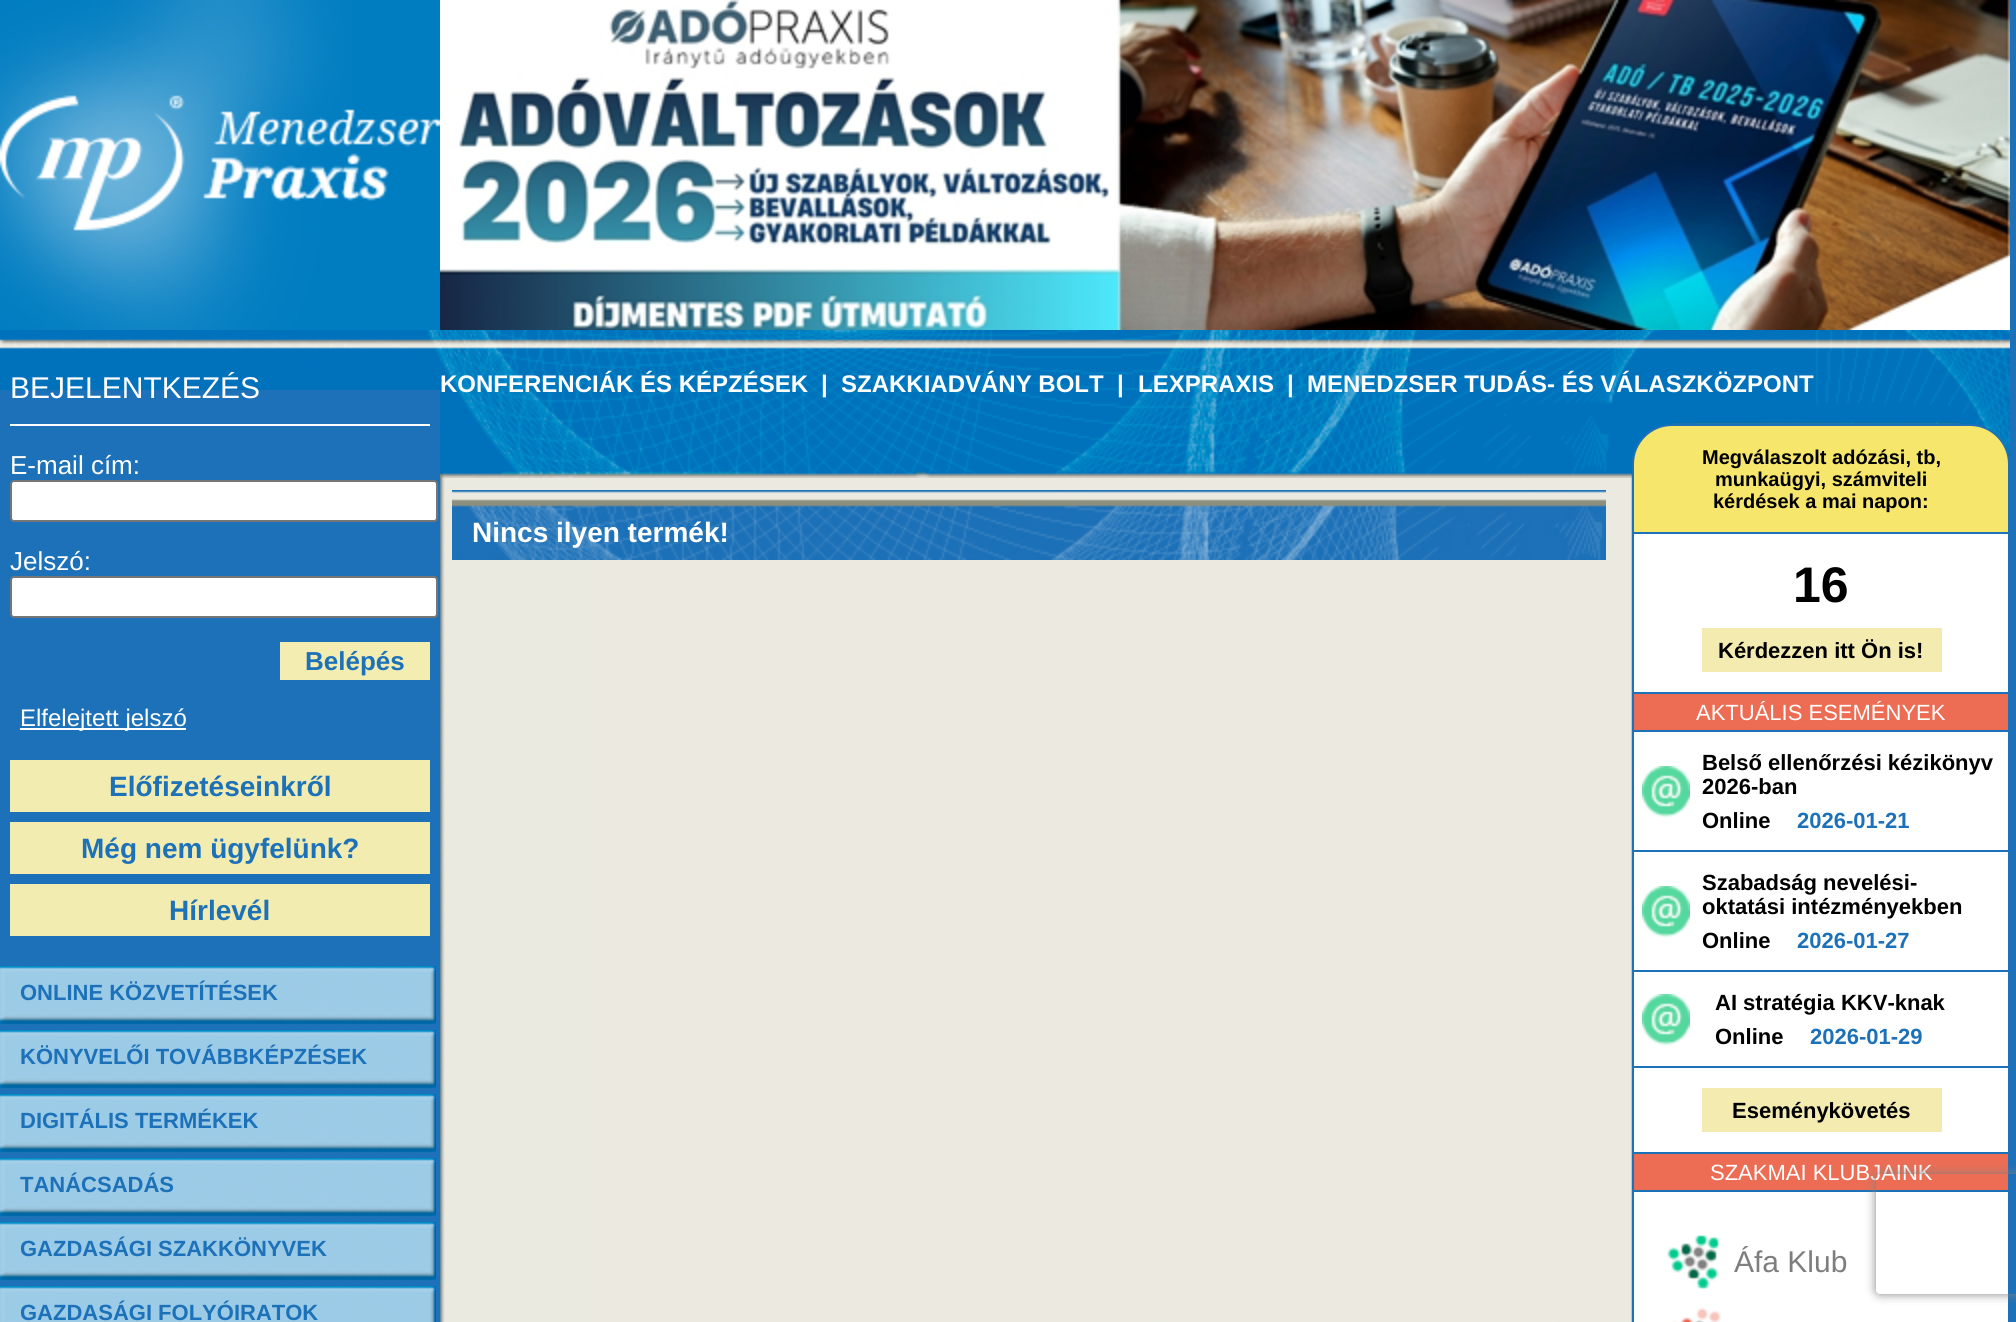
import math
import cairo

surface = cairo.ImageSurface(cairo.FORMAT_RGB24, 2016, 1322)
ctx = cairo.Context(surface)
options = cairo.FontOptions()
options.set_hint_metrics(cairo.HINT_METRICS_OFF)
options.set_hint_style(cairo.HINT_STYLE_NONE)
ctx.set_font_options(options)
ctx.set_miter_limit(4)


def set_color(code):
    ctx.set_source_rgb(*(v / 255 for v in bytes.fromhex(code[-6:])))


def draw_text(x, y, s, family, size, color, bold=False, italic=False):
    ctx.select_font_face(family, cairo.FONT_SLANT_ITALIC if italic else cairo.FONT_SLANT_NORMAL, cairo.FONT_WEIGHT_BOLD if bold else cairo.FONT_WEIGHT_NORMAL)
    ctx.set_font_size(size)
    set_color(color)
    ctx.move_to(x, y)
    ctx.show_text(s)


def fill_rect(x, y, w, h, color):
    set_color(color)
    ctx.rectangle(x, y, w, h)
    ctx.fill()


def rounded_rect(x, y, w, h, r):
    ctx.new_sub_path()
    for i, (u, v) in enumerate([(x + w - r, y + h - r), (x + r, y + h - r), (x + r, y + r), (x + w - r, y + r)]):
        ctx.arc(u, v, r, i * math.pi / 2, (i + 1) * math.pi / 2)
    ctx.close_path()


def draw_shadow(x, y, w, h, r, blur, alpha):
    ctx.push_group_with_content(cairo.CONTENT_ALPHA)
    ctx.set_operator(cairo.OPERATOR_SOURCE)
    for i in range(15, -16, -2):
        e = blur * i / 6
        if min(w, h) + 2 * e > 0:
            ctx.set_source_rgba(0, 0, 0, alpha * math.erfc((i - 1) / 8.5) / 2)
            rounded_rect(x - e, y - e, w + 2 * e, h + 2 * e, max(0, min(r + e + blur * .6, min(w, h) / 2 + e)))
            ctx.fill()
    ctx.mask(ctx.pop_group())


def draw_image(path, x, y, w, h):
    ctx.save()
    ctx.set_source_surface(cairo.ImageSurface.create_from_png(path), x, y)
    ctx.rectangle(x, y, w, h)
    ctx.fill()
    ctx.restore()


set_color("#1c71b8")
ctx.paint()
draw_image("assets/img1.png", 440, 478, 1192, 844)
draw_image("assets/img2.png", 0, 0, 440, 330)
draw_image("assets/img3.png", 440, 0, 1570, 330)
draw_image("assets/img4.png", 0, 330, 440, 60)
fill_rect(10, 424, 420, 2, "#ffffff")
draw_text(10, 398, "BEJELENTKEZÉS", "Liberation Sans", 30, "#ffffff")
draw_text(10, 474, "E-mail cím:", "Liberation Sans", 26, "#ffffff")
rounded_rect(11, 481, 426, 40, 3)
ctx.fill_preserve()
set_color("#767676")
ctx.stroke()
draw_text(10, 570, "Jelszó:", "Liberation Sans", 26, "#ffffff")
rounded_rect(11, 577, 426, 40, 3)
ctx.fill_preserve()
set_color("#767676")
ctx.stroke()
fill_rect(280, 642, 150, 38, "#f3edb1")
draw_text(305, 670, "Belépés", "Liberation Sans", 26, "#1c71b8", bold=True)
fill_rect(20, 728, 166, 2, "#ffffff")
draw_text(20, 726, "Elfelejtett jelszó", "Liberation Sans", 24, "#ffffff")
fill_rect(10, 760, 420, 52, "#f2ecb0")
draw_text(109, 796, "Előfizetéseinkről", "Liberation Sans", 28, "#1c71b8", bold=True)
fill_rect(10, 822, 420, 52, "#f2ecb0")
draw_text(81, 858, "Még nem ügyfelünk?", "Liberation Sans", 28, "#1c71b8", bold=True)
fill_rect(10, 884, 420, 52, "#f2ecb0")
draw_text(169, 920, "Hírlevél", "Liberation Sans", 28, "#1c71b8", bold=True)
draw_image("assets/img5.png", 0, 966, 436, 58)
draw_text(20, 1000, "ONLINE KÖZVETÍTÉSEK", "Liberation Sans", 22, "#1c71b8", bold=True)
draw_image("assets/img5.png", 0, 1030, 436, 58)
draw_text(20, 1064, "KÖNYVELŐI TOVÁBBKÉPZÉSEK", "Liberation Sans", 22, "#1c71b8", bold=True)
draw_image("assets/img5.png", 0, 1094, 436, 58)
draw_text(20, 1128, "DIGITÁLIS TERMÉKEK", "Liberation Sans", 22, "#1c71b8", bold=True)
draw_image("assets/img5.png", 0, 1158, 436, 58)
draw_text(20, 1192, "TANÁCSADÁS", "Liberation Sans", 22, "#1c71b8", bold=True)
draw_image("assets/img5.png", 0, 1222, 436, 58)
draw_text(20, 1256, "GAZDASÁGI SZAKKÖNYVEK", "Liberation Sans", 22, "#1c71b8", bold=True)
draw_image("assets/img6.png", 0, 1286, 436, 36)
draw_text(20, 1320, "GAZDASÁGI FOLYÓIRATOK", "Liberation Sans", 22, "#1c71b8", bold=True)
draw_image("assets/img7.png", 440, 330, 1570, 148)
draw_text(440, 392, "KONFERENCIÁK ÉS KÉPZÉSEK", "Liberation Sans", 24, "#ffffff", bold=True)
draw_text(821, 392, "|", "Liberation Sans", 24, "#ffffff", bold=True)
draw_text(841, 392, "SZAKKIADVÁNY BOLT", "Liberation Sans", 24, "#ffffff", bold=True)
draw_text(1117, 392, "|", "Liberation Sans", 24, "#ffffff", bold=True)
draw_text(1138, 392, "LEXPRAXIS", "Liberation Sans", 24, "#ffffff", bold=True)
draw_text(1287, 392, "|", "Liberation Sans", 24, "#ffffff", bold=True)
draw_text(1307, 392, "MENEDZSER TUDÁS- ÉS VÁLASZKÖZPONT", "Liberation Sans", 24, "#ffffff", bold=True)
set_color("#f6e66c")
ctx.new_path()
ctx.move_to(1672, 425)
ctx.line_to(1970, 425)
ctx.curve_to(1991.5, 425, 2009, 442.5, 2009, 464)
ctx.line_to(2009, 533)
ctx.line_to(1633, 533)
ctx.line_to(1633, 464)
ctx.curve_to(1633, 442.5, 1650.5, 425, 1672, 425)
ctx.close_path()
ctx.fill_preserve()
set_color("#1c71b8")
ctx.stroke()
draw_text(1702, 464, "Megválaszolt adózási, tb,", "Liberation Sans", 20, "#000000", bold=True)
draw_text(1715, 486, "munkaügyi, számviteli", "Liberation Sans", 20, "#000000", bold=True)
draw_text(1713, 508, "kérdések a mai napon:", "Liberation Sans", 20, "#000000", bold=True)
fill_rect(1634, 534, 374, 158, "#ffffff")
draw_text(1793, 602, "16", "Liberation Sans", 50, "#000000", bold=True)
fill_rect(1702, 628, 240, 44, "#f4ebb0")
draw_text(1718, 658, "Kérdezzen itt Ön is!", "Liberation Sans", 22, "#000000", bold=True)
fill_rect(1634, 694, 374, 36, "#ed6d54")
draw_text(1696, 720, "AKTUÁLIS ESEMÉNYEK", "Liberation Sans", 22, "#ffffff")
fill_rect(1634, 732, 374, 118, "#ffffff")
draw_image("assets/img8.png", 1642, 766, 48, 52)
draw_text(1702, 770, "Belső ellenőrzési kézikönyv", "Liberation Sans", 22, "#000000", bold=True)
draw_text(1702, 794, "2026-ban", "Liberation Sans", 22, "#000000", bold=True)
draw_text(1702, 828, "Online", "Liberation Sans", 22, "#000000", bold=True)
draw_text(1797, 828, "2026-01-21", "Liberation Sans", 22, "#1c71b8", bold=True)
fill_rect(1634, 852, 374, 118, "#ffffff")
draw_image("assets/img8.png", 1642, 886, 48, 52)
draw_text(1702, 890, "Szabadság nevelési-", "Liberation Sans", 22, "#000000", bold=True)
draw_text(1702, 914, "oktatási intézményekben", "Liberation Sans", 22, "#000000", bold=True)
draw_text(1702, 948, "Online", "Liberation Sans", 22, "#000000", bold=True)
draw_text(1797, 948, "2026-01-27", "Liberation Sans", 22, "#1c71b8", bold=True)
fill_rect(1634, 972, 374, 94, "#ffffff")
draw_image("assets/img8.png", 1642, 994, 48, 52)
draw_text(1715, 1010, "AI stratégia KKV-knak", "Liberation Sans", 22, "#000000", bold=True)
draw_text(1715, 1044, "Online", "Liberation Sans", 22, "#000000", bold=True)
draw_text(1810, 1044, "2026-01-29", "Liberation Sans", 22, "#1c71b8", bold=True)
fill_rect(1634, 1068, 374, 84, "#ffffff")
fill_rect(1702, 1088, 240, 44, "#f4ebb0")
draw_text(1732, 1118, "Eseménykövetés", "Liberation Sans", 22, "#000000", bold=True)
fill_rect(1634, 1154, 374, 36, "#ed6d54")
draw_text(1710, 1180, "SZAKMAI KLUBJAINK", "Liberation Sans", 22, "#ffffff")
fill_rect(1634, 1192, 374, 130, "#ffffff")
draw_image("assets/img9.png", 1667, 1235, 53, 54)
draw_text(1734, 1272, "Áfa Klub", "Liberation Sans", 30, "#7e7e7e")
draw_image("assets/img10.png", 1672, 1307, 49, 15)
draw_image("assets/img11.png", 452, 490, 1154, 70)
draw_text(472, 542, "Nincs ilyen termék!", "Liberation Sans", 28, "#ffffff", bold=True)
ctx.save()
ctx.set_fill_rule(cairo.FILL_RULE_EVEN_ODD)
ctx.new_path()
ctx.move_to(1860, 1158)
ctx.line_to(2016, 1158)
ctx.line_to(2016, 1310)
ctx.line_to(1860, 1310)
ctx.close_path()
ctx.move_to(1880, 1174)
ctx.line_to(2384, 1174)
ctx.curve_to(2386, 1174, 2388, 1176, 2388, 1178)
ctx.line_to(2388, 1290)
ctx.curve_to(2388, 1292, 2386, 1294, 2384, 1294)
ctx.line_to(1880, 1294)
ctx.curve_to(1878, 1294, 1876, 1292, 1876, 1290)
ctx.line_to(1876, 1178)
ctx.curve_to(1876, 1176, 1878, 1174, 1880, 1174)
ctx.close_path()
ctx.clip()
set_color("#808080")
draw_shadow(1876, 1174, 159, 120, 4, 5, 1)
ctx.restore()
surface.write_to_png("output.png")
